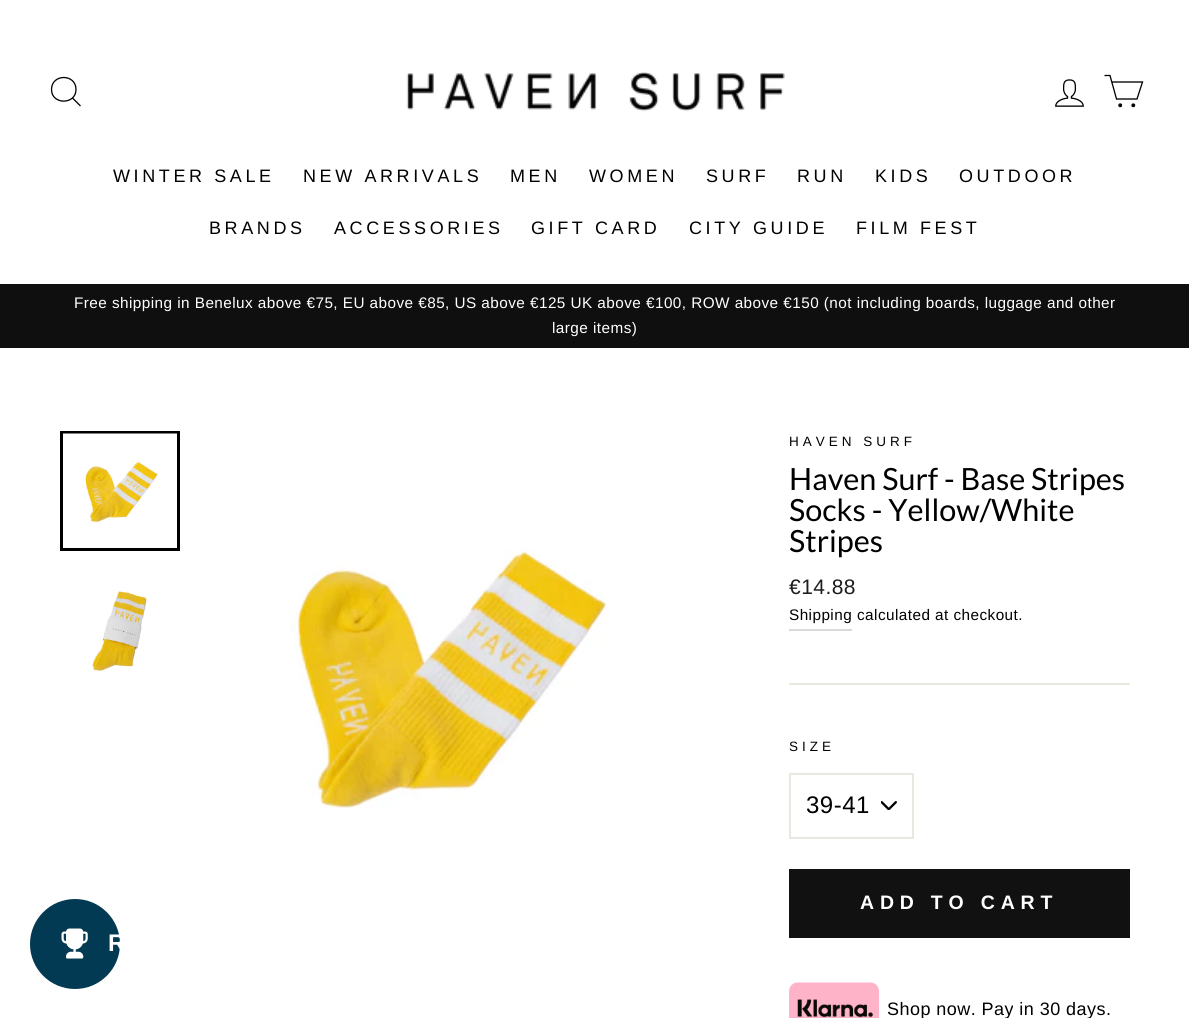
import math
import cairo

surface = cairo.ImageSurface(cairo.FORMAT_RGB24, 1189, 1018)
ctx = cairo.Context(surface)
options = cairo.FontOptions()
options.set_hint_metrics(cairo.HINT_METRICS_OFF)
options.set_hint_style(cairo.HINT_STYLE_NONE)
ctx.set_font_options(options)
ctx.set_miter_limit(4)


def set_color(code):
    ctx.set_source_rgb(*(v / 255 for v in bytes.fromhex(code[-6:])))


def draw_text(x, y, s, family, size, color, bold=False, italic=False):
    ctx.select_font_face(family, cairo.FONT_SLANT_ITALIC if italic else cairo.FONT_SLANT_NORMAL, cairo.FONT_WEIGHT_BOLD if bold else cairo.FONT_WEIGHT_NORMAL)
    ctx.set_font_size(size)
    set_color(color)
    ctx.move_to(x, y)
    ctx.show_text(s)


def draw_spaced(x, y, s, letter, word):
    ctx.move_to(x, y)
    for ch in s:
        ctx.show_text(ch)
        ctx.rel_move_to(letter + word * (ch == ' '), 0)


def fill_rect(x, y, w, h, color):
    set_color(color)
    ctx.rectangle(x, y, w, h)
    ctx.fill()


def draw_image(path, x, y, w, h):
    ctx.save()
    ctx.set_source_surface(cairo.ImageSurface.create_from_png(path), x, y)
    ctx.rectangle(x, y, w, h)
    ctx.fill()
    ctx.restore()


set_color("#ffffff")
ctx.paint()
ctx.new_path()
ctx.move_to(76, 89.5)
ctx.curve_to(76, 105, 51.5, 105, 51.5, 89.5)
ctx.curve_to(51.5, 73.5, 76, 73.5, 76, 89.5)
ctx.close_path()
ctx.move_to(80.5, 106)
ctx.line_to(72.5, 98)
set_color("#000000")
ctx.set_line_width(1.3)
ctx.stroke()
draw_image("assets/img1.png", 406, 72, 379, 40)
draw_image("assets/img2.png", 1055, 79, 29, 28)
ctx.new_path()
ctx.move_to(1111.5, 82)
ctx.line_to(1142.5, 82)
ctx.line_to(1137, 99)
ctx.line_to(1116.5, 99)
ctx.line_to(1110, 75.5)
ctx.line_to(1104.5, 75.5)
ctx.stroke()
ctx.arc(1120.2, 105.3, 1.3, 0, 2 * math.pi)
ctx.fill_preserve()
ctx.stroke()
ctx.arc(1133.3, 105.3, 1.3, 0, 2 * math.pi)
ctx.fill_preserve()
ctx.stroke()
ctx.select_font_face("Liberation Sans")
ctx.set_font_size(18)
draw_spaced(113, 182, "WINTER SALE", 3.6, 0)
draw_spaced(303, 182, "NEW ARRIVALS", 3.6, 0)
draw_spaced(510, 182, "MEN", 3.6, 0)
draw_spaced(589, 182, "WOMEN", 3.6, 0)
draw_spaced(706, 182, "SURF", 3.6, 0)
draw_spaced(797, 182, "RUN", 3.6, 0)
draw_spaced(875, 182, "KIDS", 3.6, 0)
draw_spaced(959, 182, "OUTDOOR", 3.6, 0)
draw_spaced(209, 234, "BRANDS", 3.6, 0)
draw_spaced(334, 234, "ACCESSORIES", 3.6, 0)
draw_spaced(531, 234, "GIFT CARD", 3.6, 0)
draw_spaced(689, 234, "CITY GUIDE", 3.6, 0)
draw_spaced(856, 234, "FILM FEST", 3.6, 0)
fill_rect(0, 284, 1189, 64, "#0f0f0f")
ctx.set_font_size(15.3)
set_color("#ffffff")
draw_spaced(74, 308, "Free shipping in Benelux above €75, EU above €85, US above €125 UK above €100, ROW above €150 (not including boards, luggage and other", 0.45, 0)
draw_spaced(552, 333, "large items)", 0.45, 0)
ctx.rectangle(61.5, 432.5, 117, 117)
set_color("#000000")
ctx.set_line_width(3)
ctx.stroke()
draw_image("assets/img3.png", 63, 433, 114, 89)
draw_image("assets/img4.png", 92, 591, 55, 81)
draw_image("assets/img5.png", 289, 549, 324, 260)
ctx.set_font_size(13.5)
draw_spaced(789, 446, "HAVEN SURF", 4, 0)
draw_text(789, 490, "Haven Surf - Base Stripes", "Lato", 30.6, "#000000")
draw_text(789, 521, "Socks - Yellow/White", "Lato", 30.6, "#000000")
draw_text(789, 552, "Stripes", "Lato", 30.6, "#000000")
ctx.select_font_face("Liberation Sans")
ctx.set_font_size(21)
set_color("#1c1d1d")
draw_spaced(789, 594, "€14.88", 0.45, 0)
fill_rect(789, 629, 63, 2, "#d9d9d9")
ctx.set_font_size(15.3)
set_color("#000000")
draw_spaced(789, 620, "Shipping", 0.45, 0)
draw_spaced(857, 620, "calculated at checkout.", 0.45, 0)
fill_rect(789, 683, 341, 2, "#e8e8e1")
ctx.set_font_size(13.5)
set_color("#000000")
draw_spaced(789, 751, "SIZE", 4, 0)
draw_image("assets/img6.png", 881, 801, 16, 9)
ctx.rectangle(790, 774, 123, 64)
set_color("#e8e8e1")
ctx.set_line_width(2)
ctx.stroke()
ctx.set_font_size(24)
set_color("#000000")
draw_spaced(806, 813, "39-41", 0.5, 0)
fill_rect(789, 869, 341, 69, "#111111")
ctx.select_font_face("Liberation Sans", cairo.FONT_SLANT_NORMAL, cairo.FONT_WEIGHT_BOLD)
ctx.set_font_size(19.5)
set_color("#ffffff")
draw_spaced(860, 909, "ADD TO CART", 5.8, 0)
draw_image("assets/img7.png", 789, 982, 90, 36)
ctx.select_font_face("Liberation Sans")
ctx.set_font_size(18)
set_color("#000000")
draw_spaced(887, 1015, "Shop now. Pay in 30 days.", 0.45, 0)
set_color("#013a52")
ctx.new_path()
ctx.arc(75, 944, 45, 0, 2 * math.pi)
ctx.fill()
draw_image("assets/img8.png", 61, 928, 27, 31)
draw_text(108, 951, "R", "Liberation Sans", 24, "#ffffff", bold=True)
surface.write_to_png("output.png")
